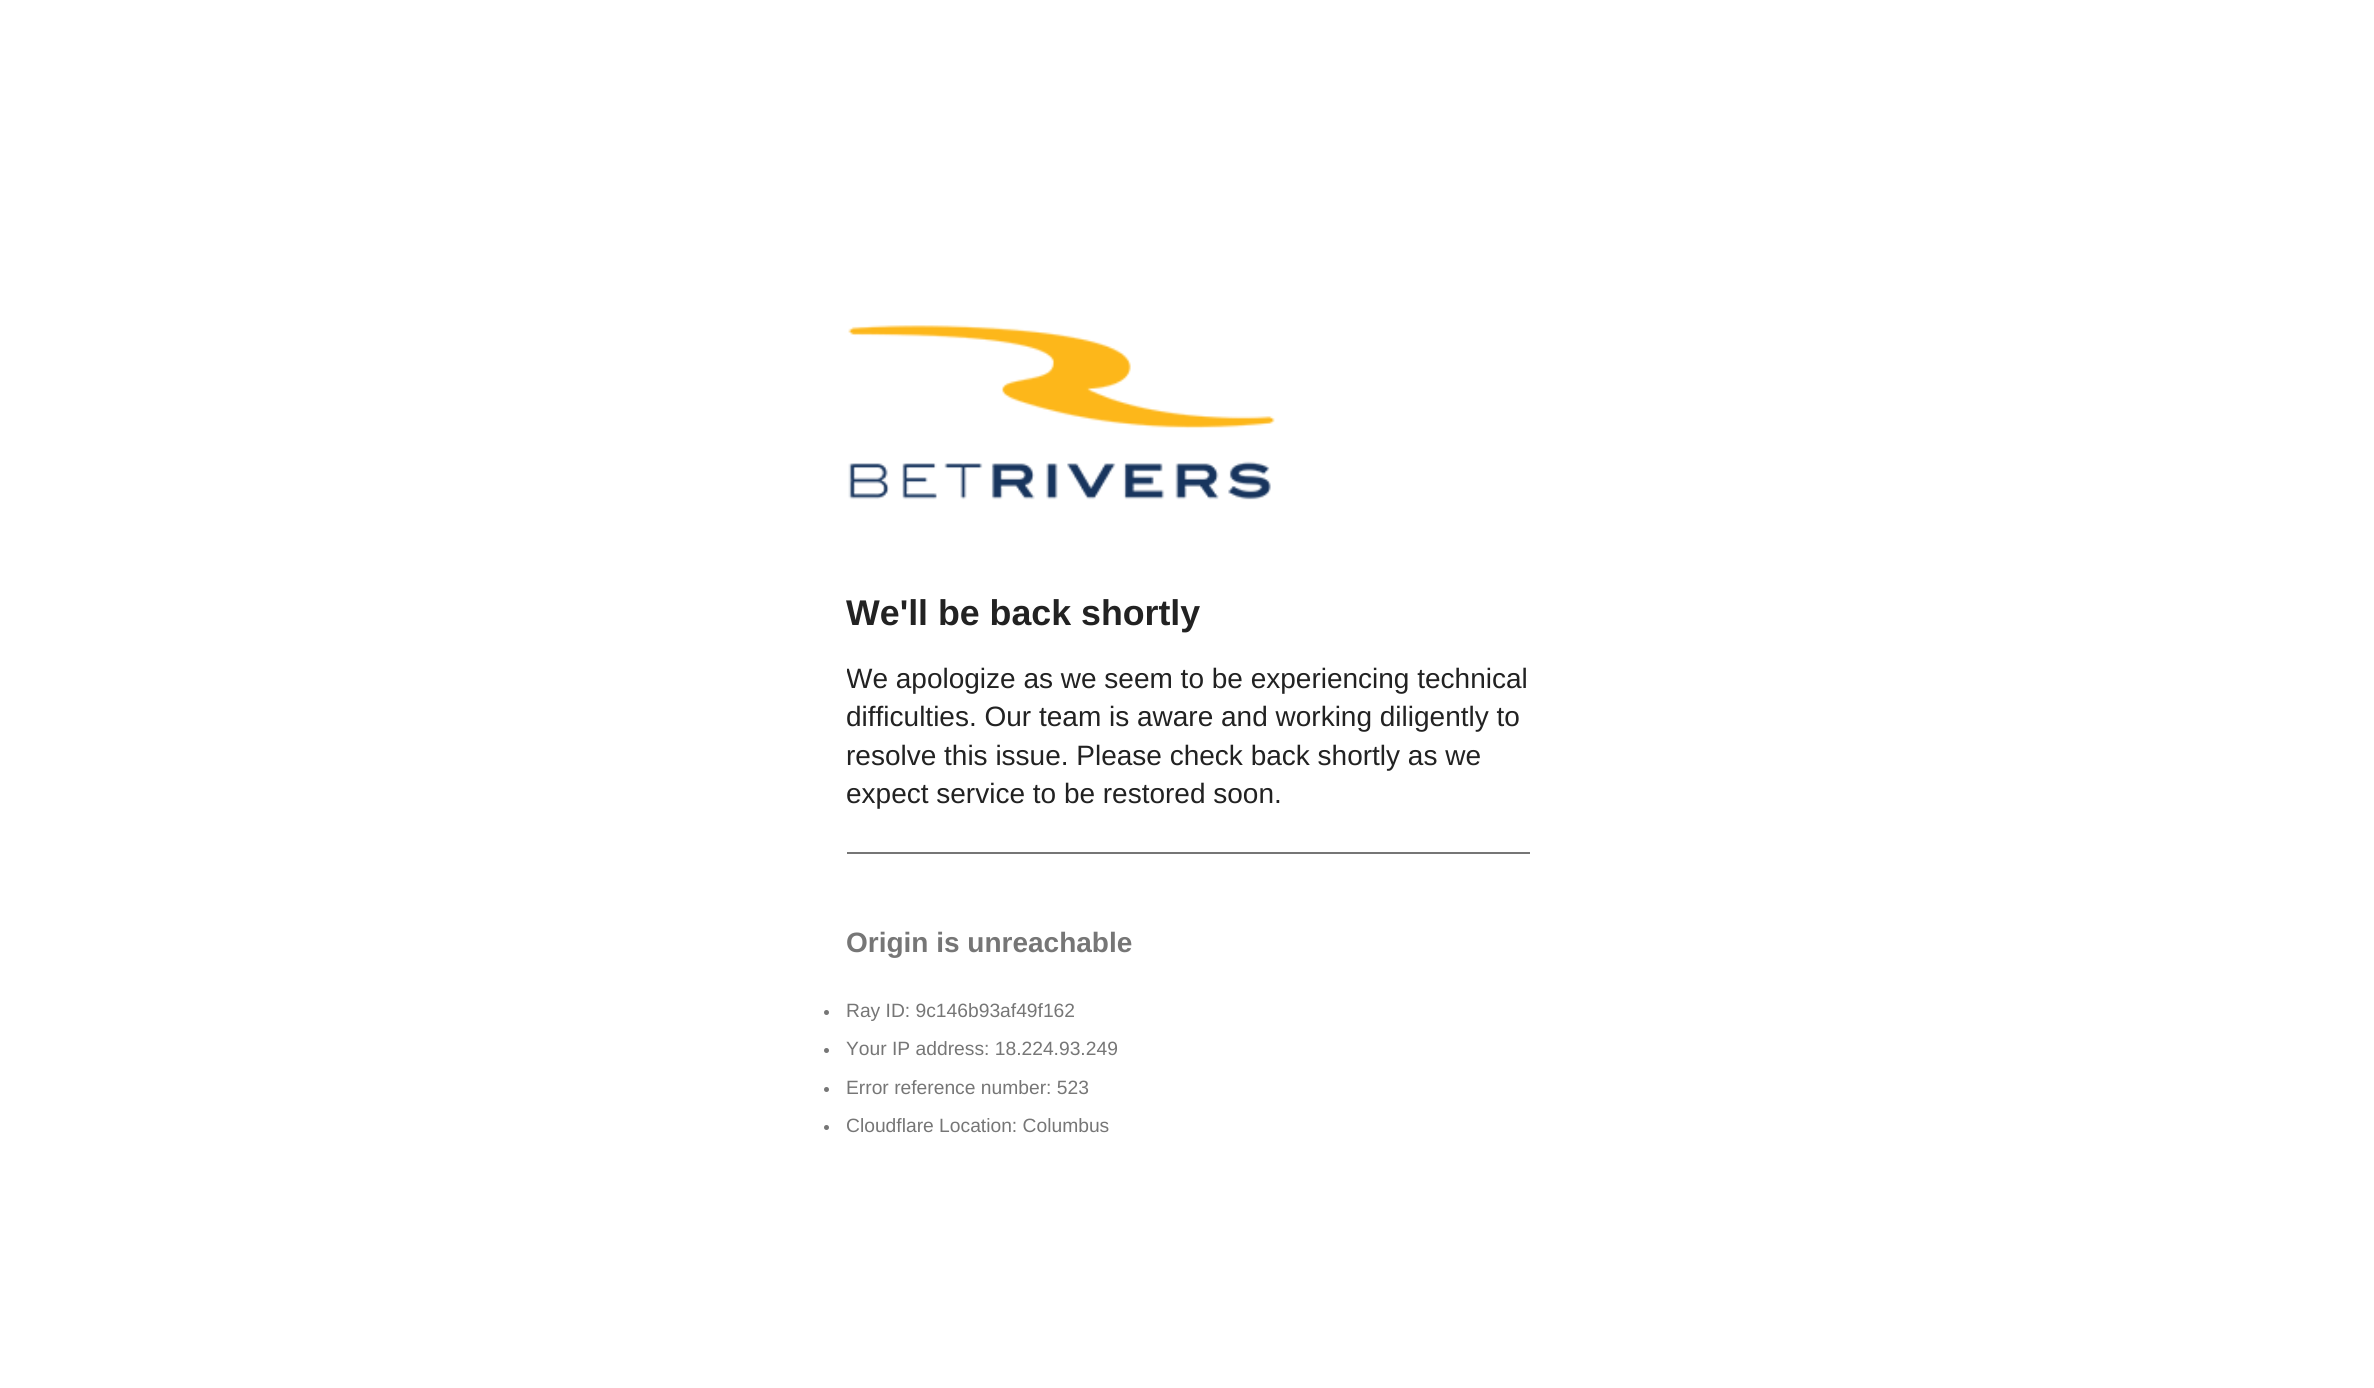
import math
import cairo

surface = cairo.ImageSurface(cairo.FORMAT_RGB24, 2374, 1388)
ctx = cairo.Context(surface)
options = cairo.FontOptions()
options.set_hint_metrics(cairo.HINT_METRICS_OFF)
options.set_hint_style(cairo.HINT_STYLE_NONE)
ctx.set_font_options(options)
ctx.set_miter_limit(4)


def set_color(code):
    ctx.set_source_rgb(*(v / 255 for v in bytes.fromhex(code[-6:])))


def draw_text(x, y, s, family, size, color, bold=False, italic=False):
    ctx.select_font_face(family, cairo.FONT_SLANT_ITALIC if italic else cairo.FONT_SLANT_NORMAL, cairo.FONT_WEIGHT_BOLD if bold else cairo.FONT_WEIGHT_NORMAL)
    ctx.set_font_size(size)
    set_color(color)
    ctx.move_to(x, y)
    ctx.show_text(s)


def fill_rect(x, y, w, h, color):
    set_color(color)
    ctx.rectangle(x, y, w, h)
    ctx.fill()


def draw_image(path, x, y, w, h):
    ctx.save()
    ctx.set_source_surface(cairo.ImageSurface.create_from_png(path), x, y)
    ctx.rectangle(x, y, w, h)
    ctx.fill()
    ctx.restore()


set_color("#ffffff")
ctx.paint()
draw_image("assets/img1.png", 848, 325, 427, 175)
draw_text(846, 625, "We'll be back shortly", "Liberation Sans", 35.75, "#222222", bold=True)
ctx.save()
ctx.rectangle(847, 660, 683, 154)
ctx.clip()
draw_text(846, 688, "We apologize as we seem to be experiencing technical", "Liberation Sans", 28, "#222222")
ctx.restore()
draw_text(846, 726, "difficulties. Our team is aware and working diligently to", "Liberation Sans", 28, "#222222")
draw_text(846, 765, "resolve this issue. Please check back shortly as we", "Liberation Sans", 28, "#222222")
draw_text(846, 803, "expect service to be restored soon.", "Liberation Sans", 28, "#222222")
fill_rect(847, 852, 683, 2, "#767676")
draw_text(846, 952, "Origin is unreachable", "Liberation Sans", 28, "#767676", bold=True)
ctx.new_path()
ctx.arc(826.5, 1012.5, 2.5, 0, 2 * math.pi)
ctx.fill()
draw_text(846, 1017, "Ray ID: 9c146b93af49f162", "Liberation Sans", 19.25, "#767676")
ctx.new_path()
ctx.arc(826.5, 1050.5, 2.5, 0, 2 * math.pi)
ctx.fill()
draw_text(846, 1055, "Your IP address: 18.224.93.249", "Liberation Sans", 19.25, "#767676")
ctx.new_path()
ctx.arc(826.5, 1089.5, 2.5, 0, 2 * math.pi)
ctx.fill()
draw_text(846, 1094, "Error reference number: 523", "Liberation Sans", 19.25, "#767676")
ctx.new_path()
ctx.arc(826.5, 1127.5, 2.5, 0, 2 * math.pi)
ctx.fill()
draw_text(846, 1132, "Cloudflare Location: Columbus", "Liberation Sans", 19.25, "#767676")
surface.write_to_png("output.png")
